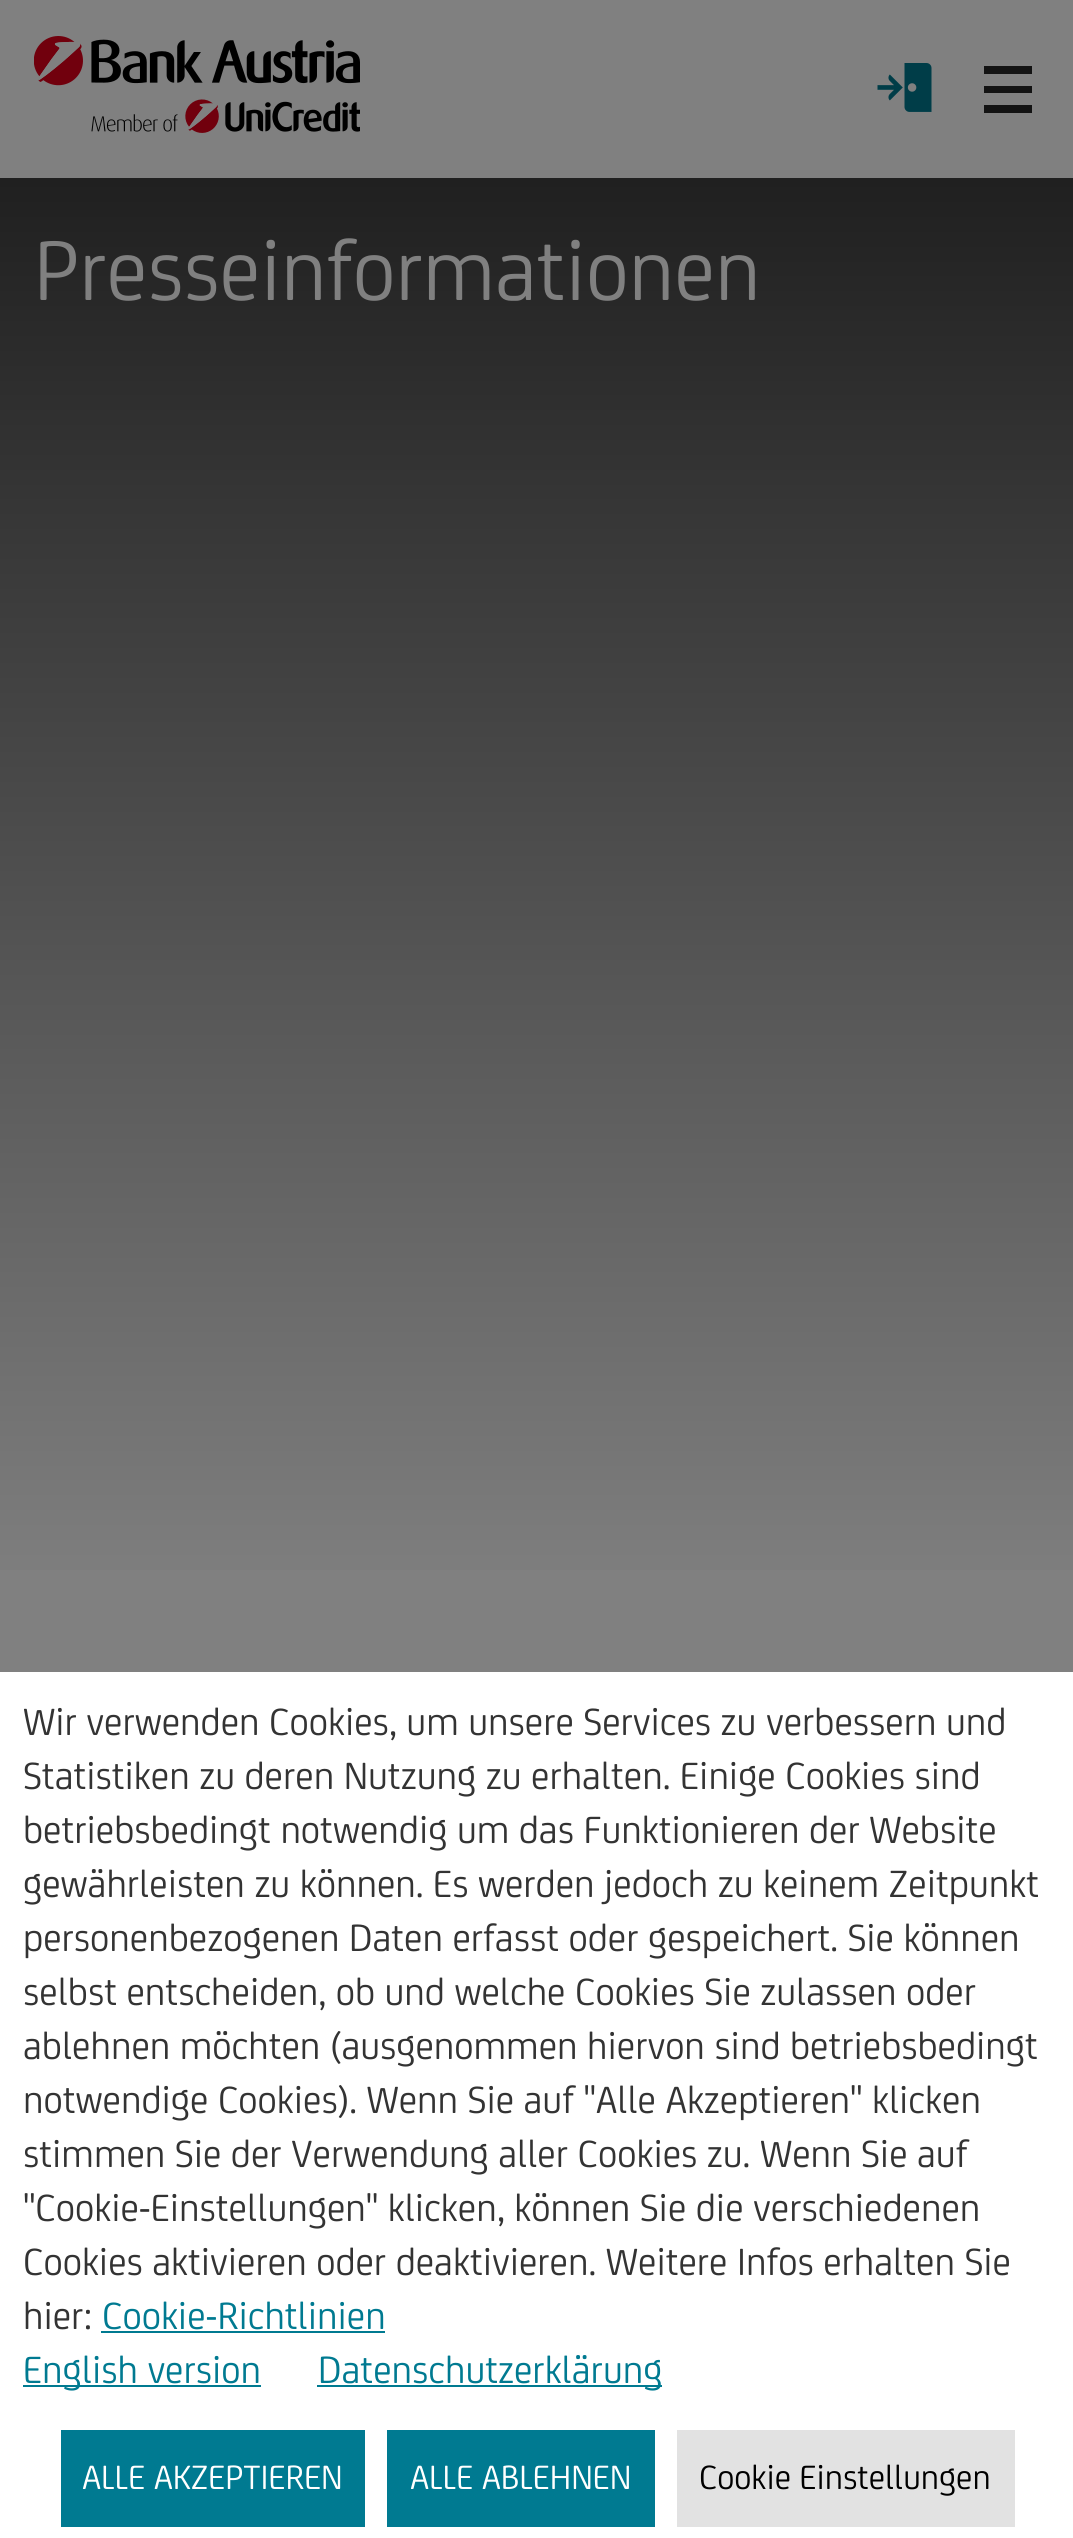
import math
import cairo

surface = cairo.ImageSurface(cairo.FORMAT_RGB24, 1073, 2538)
ctx = cairo.Context(surface)
options = cairo.FontOptions()
options.set_hint_metrics(cairo.HINT_METRICS_OFF)
options.set_hint_style(cairo.HINT_STYLE_NONE)
ctx.set_font_options(options)
ctx.set_miter_limit(4)


def set_color(code):
    ctx.set_source_rgb(*(v / 255 for v in bytes.fromhex(code[-6:])))


def draw_text(x, y, s, family, size, color, bold=False, italic=False):
    ctx.select_font_face(family, cairo.FONT_SLANT_ITALIC if italic else cairo.FONT_SLANT_NORMAL, cairo.FONT_WEIGHT_BOLD if bold else cairo.FONT_WEIGHT_NORMAL)
    ctx.set_font_size(size)
    set_color(color)
    ctx.move_to(x, y)
    ctx.show_text(s)


def fill_rect(x, y, w, h, color):
    set_color(color)
    ctx.rectangle(x, y, w, h)
    ctx.fill()


def draw_image(path, x, y, w, h):
    ctx.save()
    ctx.set_source_surface(cairo.ImageSurface.create_from_png(path), x, y)
    ctx.rectangle(x, y, w, h)
    ctx.fill()
    ctx.restore()


set_color("#808080")
ctx.paint()
draw_image("assets/img1.png", 34, 36, 326, 97)
draw_image("assets/img2.png", 877, 63, 55, 49)
set_color("#131313")
ctx.new_path()
ctx.move_to(984, 74)
ctx.line_to(1032, 74)
ctx.line_to(1032, 66)
ctx.line_to(984, 66)
ctx.close_path()
ctx.move_to(984, 93)
ctx.line_to(1032, 93)
ctx.line_to(1032, 86)
ctx.line_to(984, 86)
ctx.close_path()
ctx.move_to(984, 113)
ctx.line_to(1032, 113)
ctx.line_to(1032, 105)
ctx.line_to(984, 105)
ctx.close_path()
ctx.fill()
gradient = cairo.LinearGradient(537, 1607, 537, 178)
gradient.add_color_stop_rgba(0, 0.502, 0.502, 0.502, 1)
gradient.add_color_stop_rgba(1, 0.125, 0.125, 0.125, 1)
ctx.set_source(gradient)
ctx.rectangle(0, 178, 1073, 1392)
ctx.fill()
draw_text(34, 300, "Presseinformationen", "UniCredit", 90, "#808080")
fill_rect(0, 1672, 1073, 866, "#ffffff")
draw_text(23, 1735, "Wir verwenden Cookies, um unsere Services zu verbessern und", "UniCredit", 40.5, "#333333")
draw_text(23, 1789, "Statistiken zu deren Nutzung zu erhalten. Einige Cookies sind", "UniCredit", 40.5, "#333333")
draw_text(23, 1843, "betriebsbedingt notwendig um das Funktionieren der Website", "UniCredit", 40.5, "#333333")
draw_text(23, 1897, "gewährleisten zu können. Es werden jedoch zu keinem Zeitpunkt", "UniCredit", 40.5, "#333333")
draw_text(23, 1951, "personenbezogenen Daten erfasst oder gespeichert. Sie können", "UniCredit", 40.5, "#333333")
draw_text(23, 2005, "selbst entscheiden, ob und welche Cookies Sie zulassen oder", "UniCredit", 40.5, "#333333")
draw_text(23, 2059, "ablehnen möchten (ausgenommen hiervon sind betriebsbedingt", "UniCredit", 40.5, "#333333")
draw_text(23, 2113, "notwendige Cookies). Wenn Sie auf \"Alle Akzeptieren\" klicken", "UniCredit", 40.5, "#333333")
draw_text(23, 2167, "stimmen Sie der Verwendung aller Cookies zu. Wenn Sie auf", "UniCredit", 40.5, "#333333")
draw_text(23, 2221, "\"Cookie-Einstellungen\" klicken, können Sie die verschiedenen", "UniCredit", 40.5, "#333333")
draw_text(23, 2275, "Cookies aktivieren oder deaktivieren. Weitere Infos erhalten Sie", "UniCredit", 40.5, "#333333")
draw_text(23, 2329, "hier:", "UniCredit", 40.5, "#333333")
draw_text(102, 2329, "Cookie-Richtlinien", "UniCredit", 40.5, "#007a91")
fill_rect(101, 2331, 284, 2, "#007a91")
fill_rect(23, 2385, 238, 2, "#007a91")
draw_text(23, 2383, "English version", "UniCredit", 40.5, "#007a91")
fill_rect(317, 2385, 345, 2, "#007a91")
draw_text(318, 2383, "Datenschutzerklärung", "UniCredit", 40.5, "#007a91")
fill_rect(61, 2430, 304, 97, "#007a91")
draw_text(82, 2489, "ALLE AKZEPTIEREN", "UniCredit", 36, "#ffffff")
fill_rect(387, 2430, 268, 97, "#007a91")
draw_text(410, 2489, "ALLE ABLEHNEN", "UniCredit", 36, "#ffffff")
fill_rect(677, 2430, 338, 97, "#e2e2e2")
draw_text(699, 2489, "Cookie Einstellungen", "UniCredit", 36, "#000000")
surface.write_to_png("output.png")
